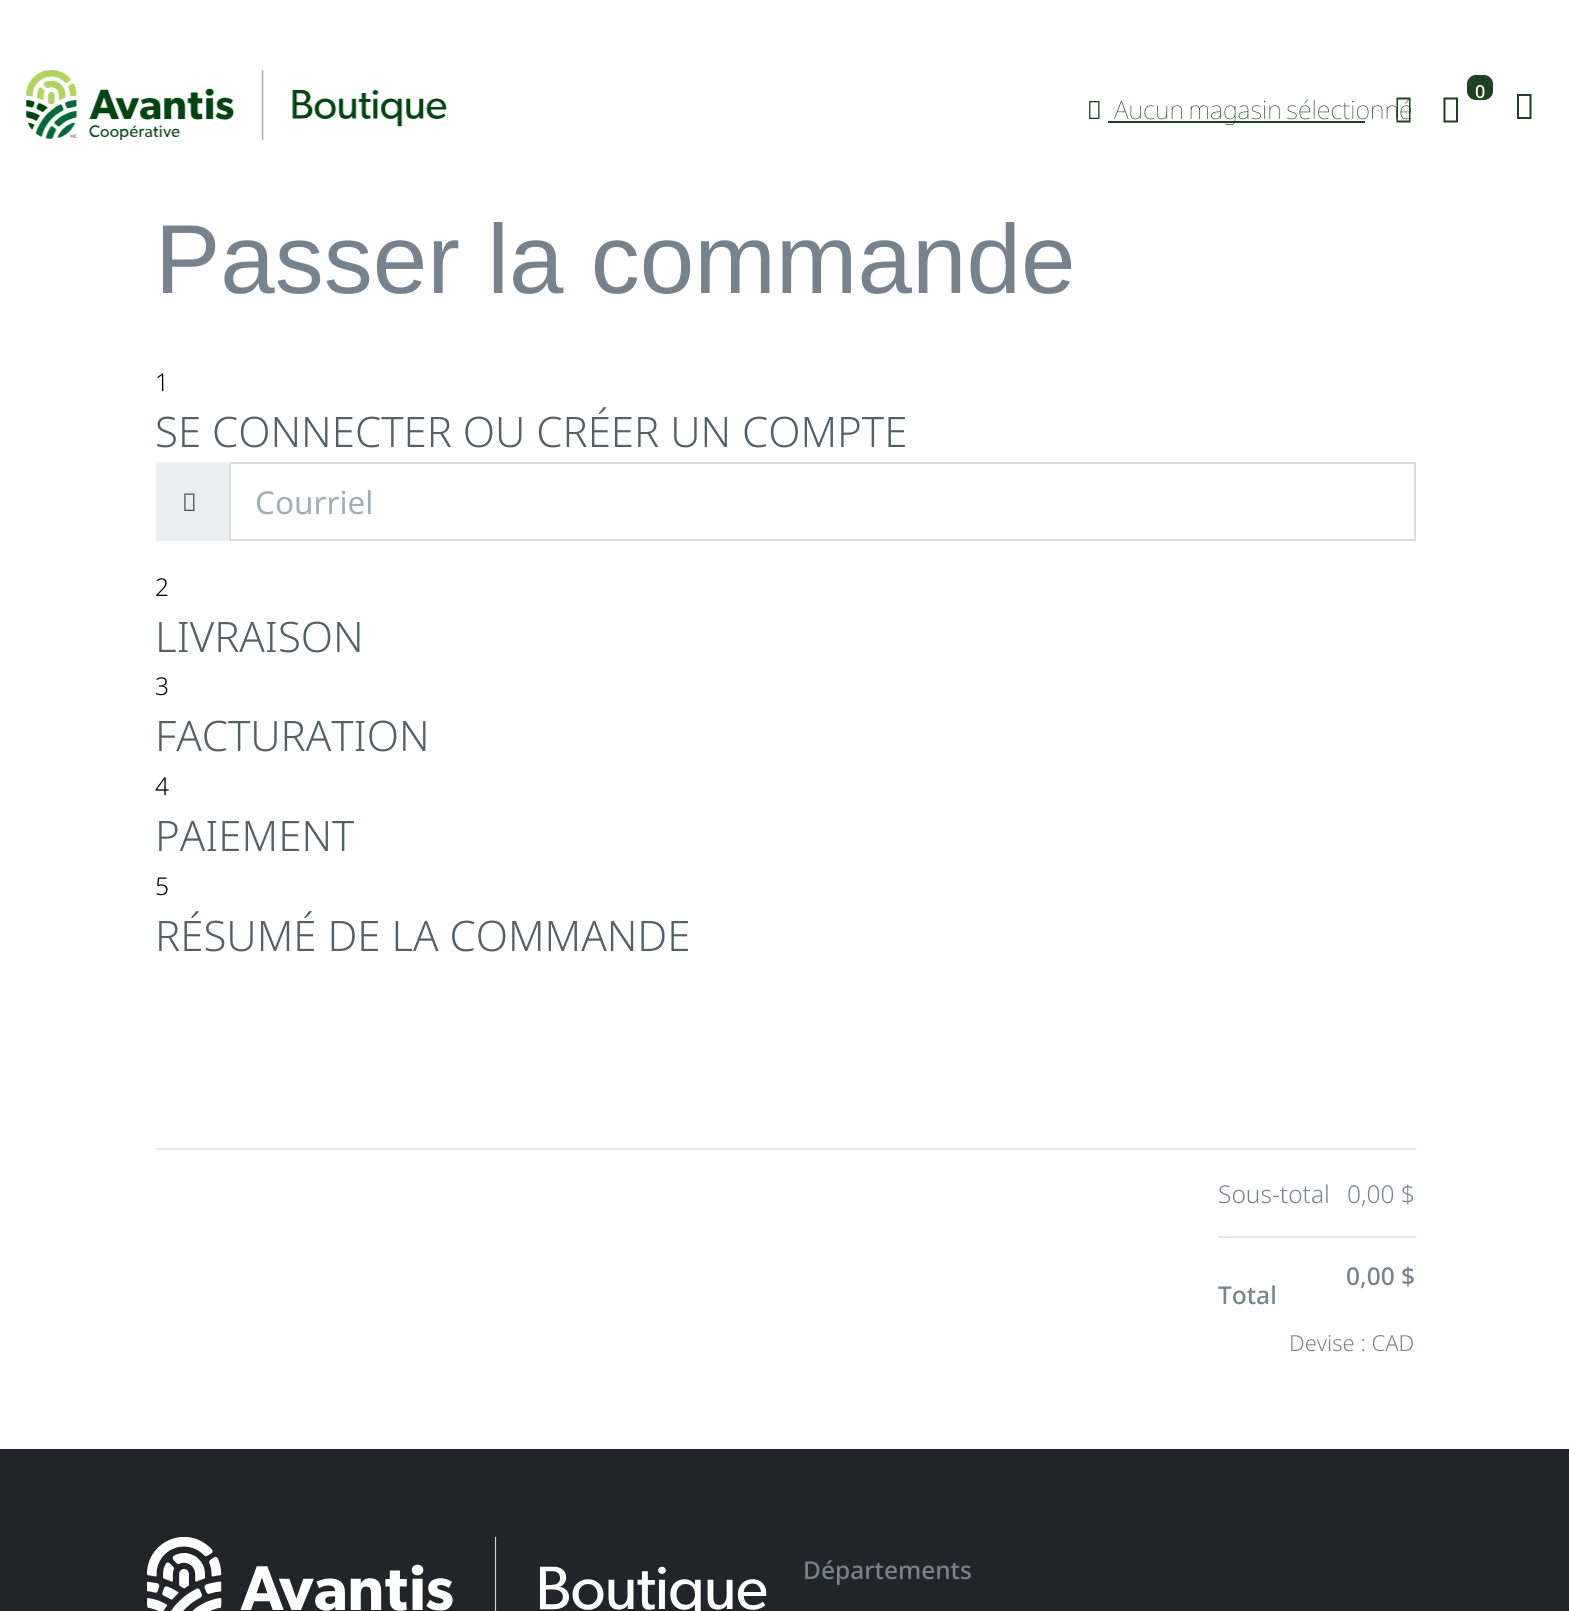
import math
import cairo

surface = cairo.ImageSurface(cairo.FORMAT_RGB24, 1569, 1611)
ctx = cairo.Context(surface)
options = cairo.FontOptions()
options.set_hint_metrics(cairo.HINT_METRICS_OFF)
options.set_hint_style(cairo.HINT_STYLE_NONE)
ctx.set_font_options(options)
ctx.set_miter_limit(4)


def set_color(code):
    ctx.set_source_rgb(*(v / 255 for v in bytes.fromhex(code[-6:])))


def draw_text(x, y, s, family, size, color, bold=False, italic=False):
    ctx.select_font_face(family, cairo.FONT_SLANT_ITALIC if italic else cairo.FONT_SLANT_NORMAL, cairo.FONT_WEIGHT_BOLD if bold else cairo.FONT_WEIGHT_NORMAL)
    ctx.set_font_size(size)
    set_color(color)
    ctx.move_to(x, y)
    ctx.show_text(s)


def draw_spaced(x, y, s, letter, word):
    ctx.move_to(x, y)
    for ch in s:
        ctx.show_text(ch)
        ctx.rel_move_to(letter + word * (ch == ' '), 0)


def fill_rect(x, y, w, h, color):
    set_color(color)
    ctx.rectangle(x, y, w, h)
    ctx.fill()


def rounded_rect(x, y, w, h, r):
    ctx.new_sub_path()
    for i, (u, v) in enumerate([(x + w - r, y + h - r), (x + r, y + h - r), (x + r, y + r), (x + w - r, y + r)]):
        ctx.arc(u, v, r, i * math.pi / 2, (i + 1) * math.pi / 2)
    ctx.close_path()


def draw_image(path, x, y, w, h):
    ctx.save()
    ctx.set_source_surface(cairo.ImageSurface.create_from_png(path), x, y)
    ctx.rectangle(x, y, w, h)
    ctx.fill()
    ctx.restore()


set_color("#ffffff")
ctx.paint()
draw_image("assets/img1.png", 26, 70, 421, 70)
set_color("#1c4220")
rounded_rect(1467, 75, 26, 25, 9)
ctx.fill()
draw_text(1475, 98, "0", "Noto Sans Medium", 18, "#ffffff")
draw_image("assets/img2.png", 1089, 101, 11, 18)
fill_rect(1108, 121, 257, 2, "#1c4220")
ctx.select_font_face("Noto Sans Thin")
ctx.set_font_size(25.25)
draw_spaced(1114, 119, "Aucun magasin sélectionné", 0, -2)
ctx.new_path()
ctx.move_to(1396.5, 122.5)
ctx.line_to(1396.5, 97.5)
ctx.line_to(1410.5, 97.5)
ctx.line_to(1410.5, 122.5)
ctx.close_path()
ctx.move_to(1398, 120.5)
ctx.line_to(1409, 120.5)
ctx.line_to(1409, 99.5)
ctx.line_to(1398, 99.5)
ctx.close_path()
ctx.move_to(1443.5, 122.5)
ctx.line_to(1443.5, 97.5)
ctx.line_to(1458, 97.5)
ctx.line_to(1458, 122.5)
ctx.close_path()
ctx.move_to(1445.5, 120.5)
ctx.line_to(1456, 120.5)
ctx.line_to(1456, 99.5)
ctx.line_to(1445.5, 99.5)
ctx.close_path()
ctx.fill()
ctx.new_path()
ctx.move_to(1517, 119)
ctx.line_to(1517, 94)
ctx.line_to(1531.5, 94)
ctx.line_to(1531.5, 119)
ctx.close_path()
ctx.move_to(1519, 117)
ctx.line_to(1529.5, 117)
ctx.line_to(1529.5, 96)
ctx.line_to(1519, 96)
ctx.close_path()
ctx.fill()
draw_text(155, 293, "Passer la commande", "Liberation Sans", 98, "#76838f")
draw_text(155, 391, "1", "Noto Sans Light", 24.5, "#000000")
draw_text(155, 447, "SE CONNECTER OU CRÉER UN COMPTE", "Noto Sans Light", 42, "#526069")
fill_rect(158, 464, 71, 75, "#ecedf1")
fill_rect(156, 462, 75, 2, "#f0f0f0")
fill_rect(156, 539, 75, 2, "#f0f0f0")
fill_rect(156, 462, 2, 79, "#f0f0f0")
draw_image("assets/img3.png", 184, 493, 11, 18)
ctx.rectangle(230, 463, 1185, 77)
set_color("#dddddd")
ctx.stroke()
draw_text(255, 514, "Courriel", "Noto Sans", 31.5, "#a3afb7")
draw_text(155, 596, "2", "Noto Sans Light", 24.5, "#000000")
draw_text(155, 652, "LIVRAISON", "Noto Sans Light", 42, "#526069")
draw_text(155, 695, "3", "Noto Sans Light", 24.5, "#000000")
draw_text(155, 751, "FACTURATION", "Noto Sans Light", 42, "#526069")
draw_text(155, 795, "4", "Noto Sans Light", 24.5, "#000000")
draw_text(155, 851, "PAIEMENT", "Noto Sans Light", 42, "#526069")
draw_text(155, 895, "5", "Noto Sans Light", 24.5, "#000000")
draw_text(155, 951, "RÉSUMÉ DE LA COMMANDE", "Noto Sans Light", 42, "#526069")
fill_rect(156, 1148, 1260, 2, "#e4eaec")
draw_text(1218, 1203, "Sous-total", "Noto Sans Light", 24.5, "#76838f")
draw_text(1347, 1203, "0,00 $", "Noto Sans Light", 24.5, "#76838f")
fill_rect(1218, 1236, 198, 2, "#e4eaec")
draw_text(1346, 1285, "0,00 $", "Noto Sans Medium", 24.5, "#76838f")
draw_text(1218, 1304, "Total", "Noto Sans Medium", 24.5, "#76838f")
draw_text(1289, 1351, "Devise : CAD", "Noto Sans Light", 22, "#76838f")
fill_rect(0, 1449, 1569, 162, "#212529")
draw_image("assets/img4.png", 147, 1537, 620, 74)
draw_text(803, 1579, "Départements", "Noto Sans Medium", 24.5, "#76838f")
surface.write_to_png("output.png")
